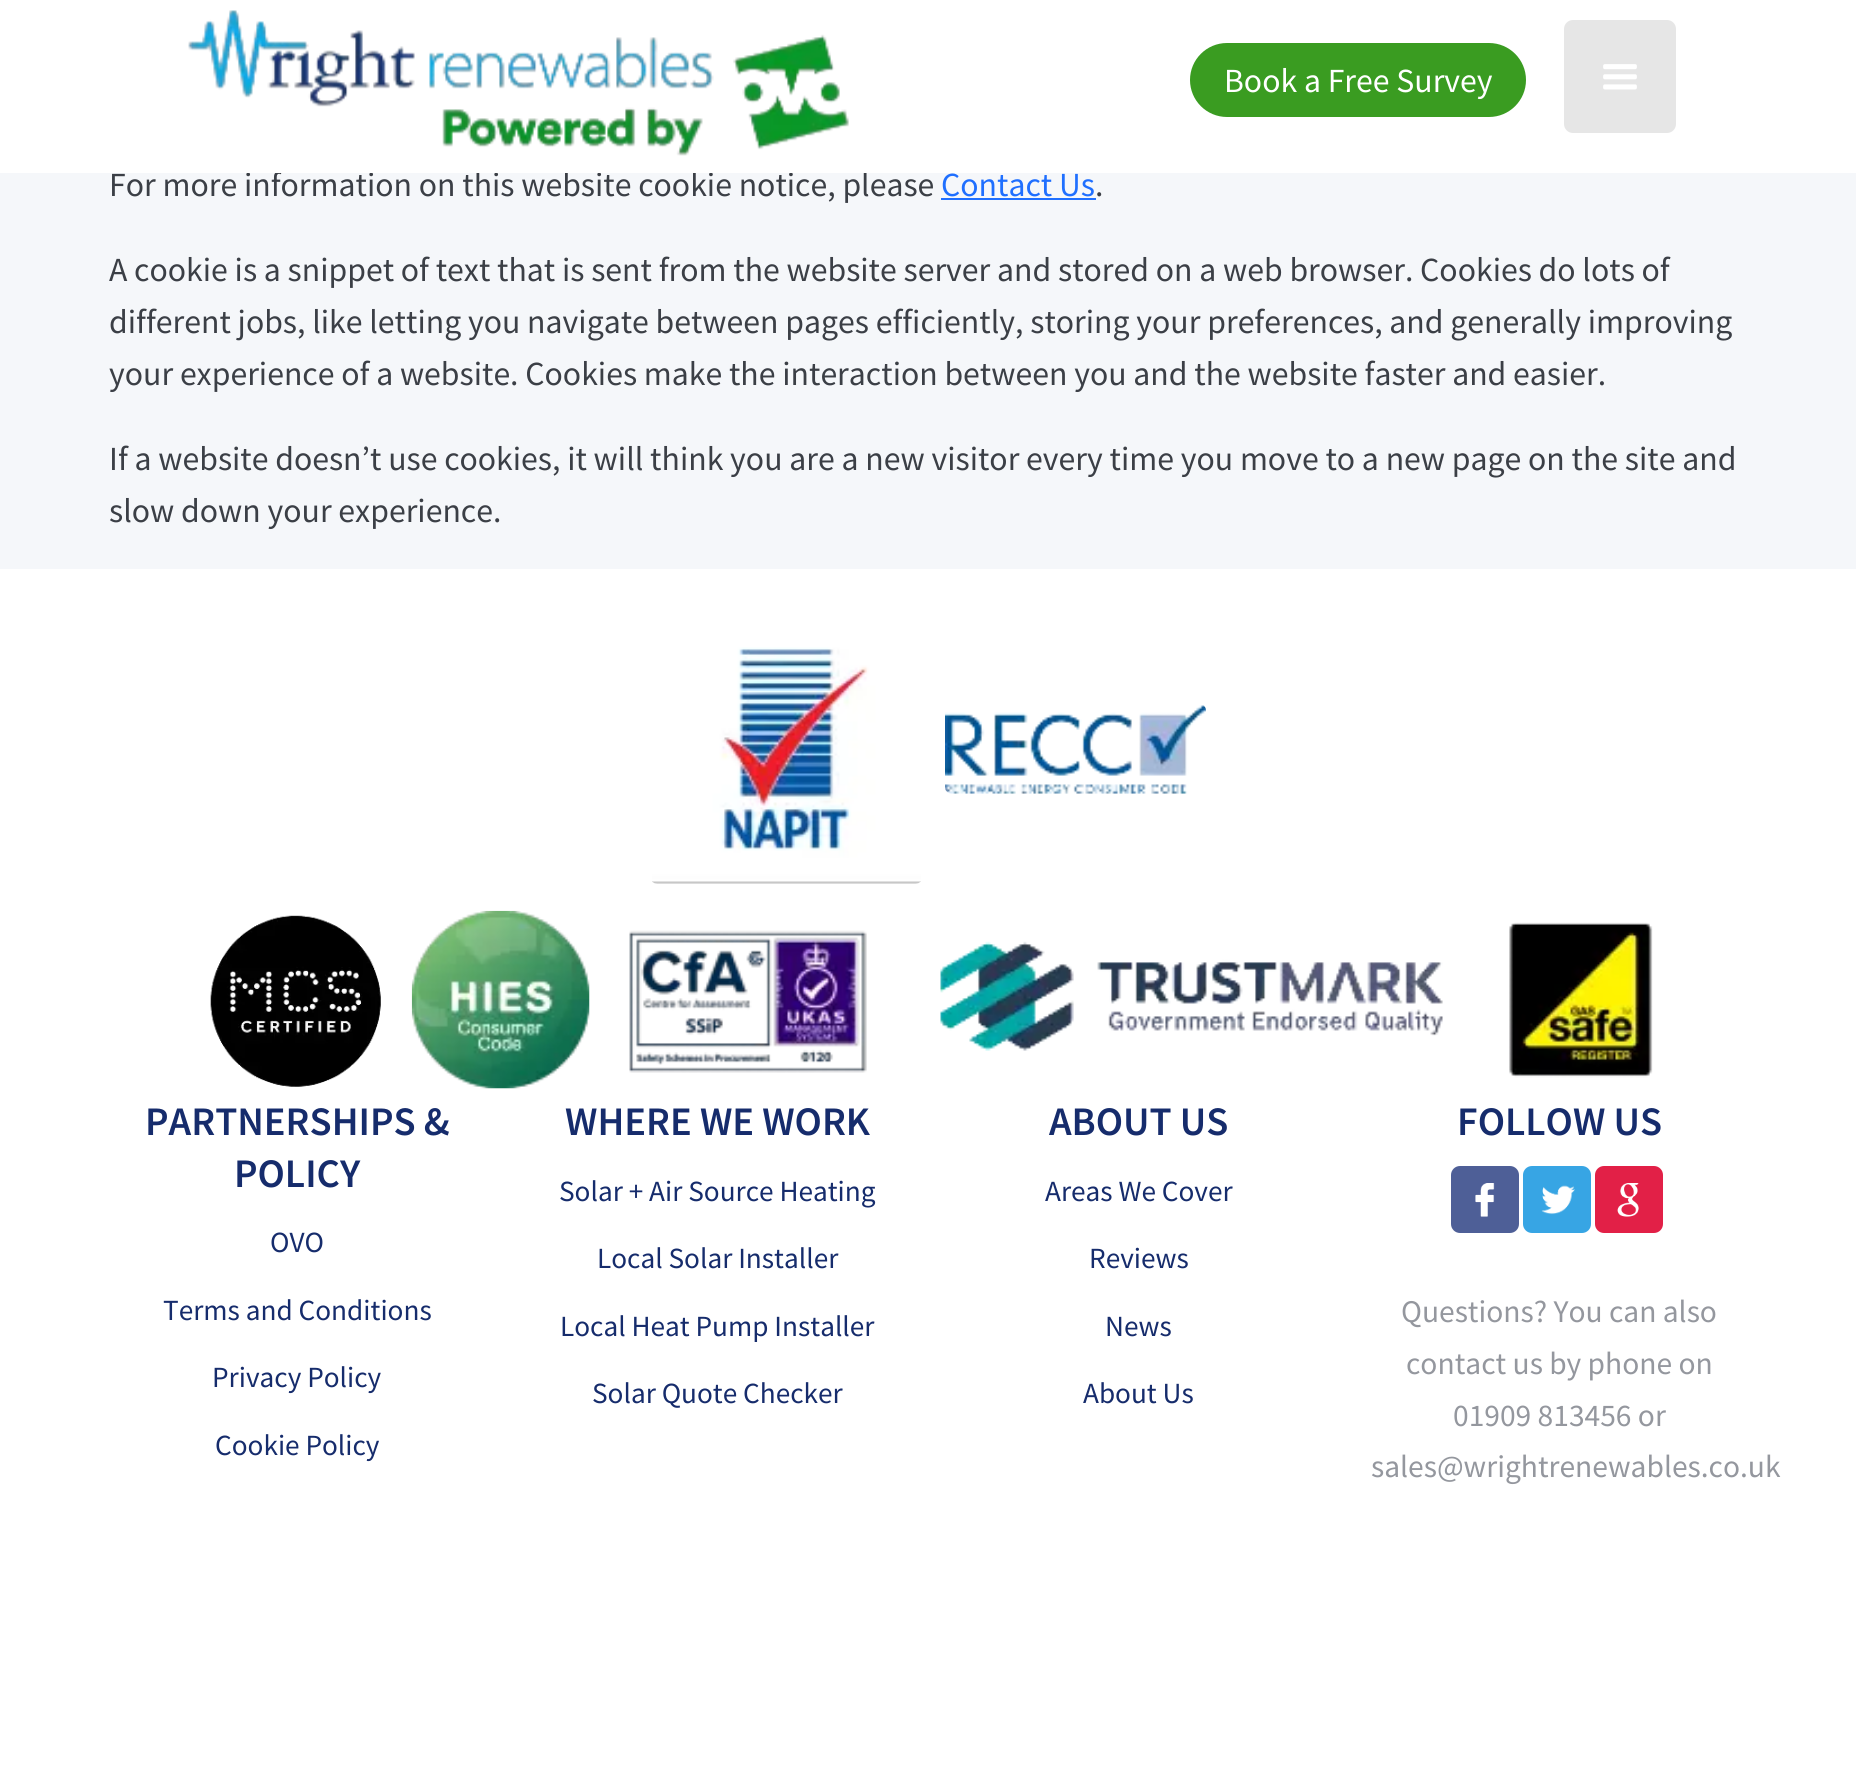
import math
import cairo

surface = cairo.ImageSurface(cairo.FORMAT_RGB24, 1856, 1778)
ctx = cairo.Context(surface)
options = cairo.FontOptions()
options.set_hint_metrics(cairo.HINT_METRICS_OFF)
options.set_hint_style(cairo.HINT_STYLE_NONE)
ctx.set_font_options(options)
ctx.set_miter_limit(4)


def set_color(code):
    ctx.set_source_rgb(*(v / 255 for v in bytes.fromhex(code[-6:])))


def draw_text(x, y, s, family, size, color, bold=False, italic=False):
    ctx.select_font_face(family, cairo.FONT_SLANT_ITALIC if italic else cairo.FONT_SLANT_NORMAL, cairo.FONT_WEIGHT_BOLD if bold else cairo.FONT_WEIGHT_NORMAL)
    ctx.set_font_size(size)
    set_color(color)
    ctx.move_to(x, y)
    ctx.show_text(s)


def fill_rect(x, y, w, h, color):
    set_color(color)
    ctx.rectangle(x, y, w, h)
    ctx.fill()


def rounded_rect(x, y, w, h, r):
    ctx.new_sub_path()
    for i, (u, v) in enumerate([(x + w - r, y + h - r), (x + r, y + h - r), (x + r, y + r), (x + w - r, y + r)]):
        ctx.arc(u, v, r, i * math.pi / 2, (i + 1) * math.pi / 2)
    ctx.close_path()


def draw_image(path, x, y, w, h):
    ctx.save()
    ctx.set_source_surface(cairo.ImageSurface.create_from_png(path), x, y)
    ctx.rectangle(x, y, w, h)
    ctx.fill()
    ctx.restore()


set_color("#f5f7fa")
ctx.paint()
draw_text(109, 196, "For more information on this website cookie notice, please", "Source Sans Pro", 33.75, "#3b3f46")
fill_rect(0, 0, 1856, 173, "#ffffff")
draw_image("assets/img1.png", 188, 10, 661, 146)
set_color("#3a9c21")
rounded_rect(1190, 43, 336, 74, 37)
ctx.fill()
draw_text(1224, 92, "Book a Free Survey", "Source Sans Pro", 33.75, "#ffffff")
set_color("#e6e6e6")
rounded_rect(1564, 20, 112, 113, 9)
ctx.fill()
draw_image("assets/img2.png", 1603, 64, 34, 26)
draw_text(941, 196, "Contact Us", "Source Sans Pro", 33.75, "#1f6fff")
fill_rect(941, 198, 155, 2, "#1f6fff")
draw_text(1095, 196, ".", "Source Sans Pro", 33.75, "#3b3f46")
draw_text(109, 281, "A cookie is a snippet of text that is sent from the website server and stored on a web browser. Cookies do lots of", "Source Sans Pro", 33.75, "#3b3f46")
draw_text(109, 333, "different jobs, like letting you navigate between pages efficiently, storing your preferences, and generally improving", "Source Sans Pro", 33.75, "#3b3f46")
draw_text(109, 385, "your experience of a website. Cookies make the interaction between you and the website faster and easier.", "Source Sans Pro", 33.75, "#3b3f46")
draw_text(109, 470, "If a website doesn’t use cookies, it will think you are a new visitor every time you move to a new page on the site and", "Source Sans Pro", 33.75, "#3b3f46")
draw_text(109, 522, "slow down your experience.", "Source Sans Pro", 33.75, "#3b3f46")
fill_rect(0, 569, 1856, 1209, "#ffffff")
draw_image("assets/img3.png", 652, 647, 269, 237)
draw_image("assets/img4.png", 945, 705, 261, 89)
draw_image("assets/img5.png", 210, 915, 171, 172)
draw_image("assets/img6.png", 411, 910, 179, 179)
draw_image("assets/img7.png", 629, 930, 238, 143)
draw_image("assets/img8.png", 940, 941, 503, 110)
draw_image("assets/img9.png", 1509, 922, 144, 156)
draw_text(145, 1135, "PARTNERSHIPS &", "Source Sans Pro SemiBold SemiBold", 40.5, "#162c6c")
draw_text(234, 1187, "POLICY", "Source Sans Pro SemiBold SemiBold", 40.5, "#162c6c")
draw_text(270, 1252, "OVO", "Source Sans Pro", 29.25, "#162c6c")
draw_text(163, 1320, "Terms and Conditions", "Source Sans Pro", 29.25, "#162c6c")
draw_text(212, 1387, "Privacy Policy", "Source Sans Pro", 29.25, "#162c6c")
draw_text(215, 1455, "Cookie Policy", "Source Sans Pro", 29.25, "#162c6c")
draw_text(565, 1135, "WHERE WE WORK", "Source Sans Pro SemiBold SemiBold", 40.5, "#162c6c")
draw_text(559, 1201, "Solar + Air Source Heating", "Source Sans Pro", 29.25, "#162c6c")
draw_text(597, 1268, "Local Solar Installer", "Source Sans Pro", 29.25, "#162c6c")
draw_text(560, 1336, "Local Heat Pump Installer", "Source Sans Pro", 29.25, "#162c6c")
draw_text(592, 1403, "Solar Quote Checker", "Source Sans Pro", 29.25, "#162c6c")
draw_text(1049, 1135, "ABOUT US", "Source Sans Pro SemiBold SemiBold", 40.5, "#162c6c")
draw_text(1045, 1201, "Areas We Cover", "Source Sans Pro", 29.25, "#162c6c")
draw_text(1089, 1268, "Reviews", "Source Sans Pro", 29.25, "#162c6c")
draw_text(1105, 1336, "News", "Source Sans Pro", 29.25, "#162c6c")
draw_text(1083, 1403, "About Us", "Source Sans Pro", 29.25, "#162c6c")
draw_text(1457, 1135, "FOLLOW US", "Source Sans Pro SemiBold SemiBold", 40.5, "#162c6c")
set_color("#4e5f97")
rounded_rect(1451, 1166, 68, 67, 9)
ctx.fill()
draw_image("assets/img10.png", 1475, 1183, 20, 34)
set_color("#37a5e4")
rounded_rect(1523, 1166, 68, 67, 9)
ctx.fill()
draw_image("assets/img11.png", 1541, 1185, 34, 30)
set_color("#e22047")
rounded_rect(1595, 1166, 68, 67, 9)
ctx.fill()
draw_image("assets/img12.png", 1617, 1183, 22, 34)
draw_text(1401, 1322, "Questions? You can also", "Source Sans Pro", 31.5, "#94979e")
draw_text(1406, 1374, "contact us by phone on", "Source Sans Pro", 31.5, "#94979e")
draw_text(1453, 1426, "01909 813456 or", "Source Sans Pro", 31.5, "#94979e")
draw_text(1371, 1477, "sales@wrightrenewables.co.uk", "Source Sans Pro", 31.5, "#94979e")
surface.write_to_png("output.png")
